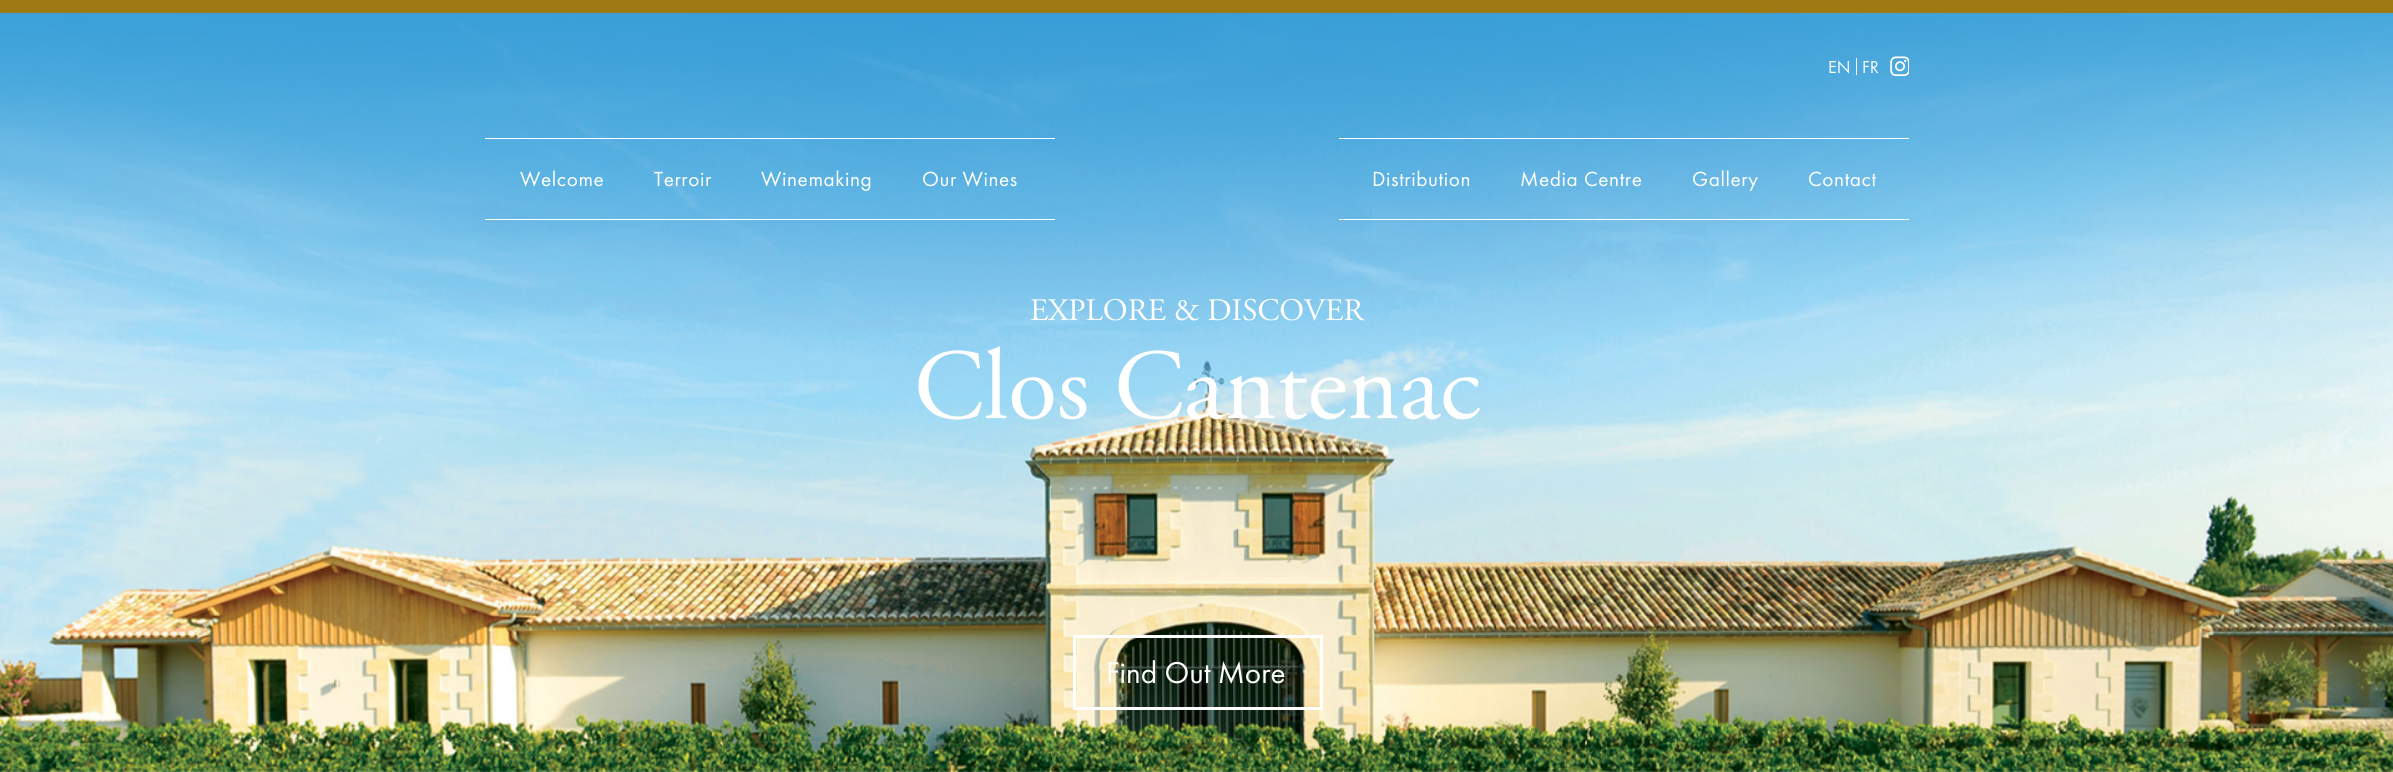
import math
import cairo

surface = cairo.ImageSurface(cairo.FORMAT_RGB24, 2393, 772)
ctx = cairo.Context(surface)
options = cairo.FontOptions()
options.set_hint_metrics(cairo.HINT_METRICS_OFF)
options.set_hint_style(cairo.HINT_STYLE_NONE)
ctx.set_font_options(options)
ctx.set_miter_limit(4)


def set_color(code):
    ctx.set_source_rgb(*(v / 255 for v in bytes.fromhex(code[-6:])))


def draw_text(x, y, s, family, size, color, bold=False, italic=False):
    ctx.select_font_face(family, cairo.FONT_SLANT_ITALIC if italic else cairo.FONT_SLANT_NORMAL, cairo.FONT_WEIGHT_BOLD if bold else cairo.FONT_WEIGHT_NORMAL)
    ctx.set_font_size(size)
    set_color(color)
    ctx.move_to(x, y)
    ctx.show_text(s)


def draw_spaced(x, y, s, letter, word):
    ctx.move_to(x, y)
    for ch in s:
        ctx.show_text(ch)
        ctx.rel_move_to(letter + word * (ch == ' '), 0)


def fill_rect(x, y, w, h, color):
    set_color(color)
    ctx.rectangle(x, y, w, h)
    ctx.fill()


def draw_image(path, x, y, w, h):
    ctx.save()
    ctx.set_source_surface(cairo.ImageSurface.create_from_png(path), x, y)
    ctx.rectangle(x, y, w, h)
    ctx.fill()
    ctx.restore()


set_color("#ffffff")
ctx.paint()
draw_image("assets/img1.png", 0, 13, 2393, 759)
fill_rect(0, 0, 2393, 13, "#9f7a14")
fill_rect(1856, 58, 1, 17, "#ffffff")
draw_text(1828, 73, "EN", "Futura PT", 18, "#ffffff")
draw_text(1862, 73, "FR", "Futura PT", 18, "#ffffff")
draw_image("assets/img2.png", 1890, 56, 19, 20)
fill_rect(485, 138, 570, 1, "#ffffff")
fill_rect(485, 219, 570, 1, "#ffffff")
ctx.set_font_size(21.25)
draw_spaced(520, 186, "Welcome", 0.6, 0)
draw_spaced(654, 186, "Terroir", 0.6, 0)
draw_spaced(761, 186, "Winemaking", 0.6, 0)
draw_spaced(922, 186, "Our Wines", 0.6, 0)
fill_rect(1339, 138, 570, 1, "#ffffff")
fill_rect(1339, 219, 570, 1, "#ffffff")
draw_spaced(1372, 186, "Distribution", 0.6, 0)
draw_spaced(1520, 186, "Media Centre", 0.6, 0)
draw_spaced(1692, 186, "Gallery", 0.6, 0)
draw_spaced(1808, 186, "Contact", 0.6, 0)
draw_text(1030, 320, "EXPLORE & DISCOVER", "Adobe Garamond", 31.25, "#ffffff")
draw_text(914, 418, "Clos Cantenac", "Adobe Garamond", 100, "#ffffff")
ctx.rectangle(1074.5, 636.5, 247, 72)
ctx.set_line_width(3)
ctx.stroke()
draw_text(1106, 683, "Find Out More", "Futura PT", 31.25, "#ffffff")
surface.write_to_png("output.png")
